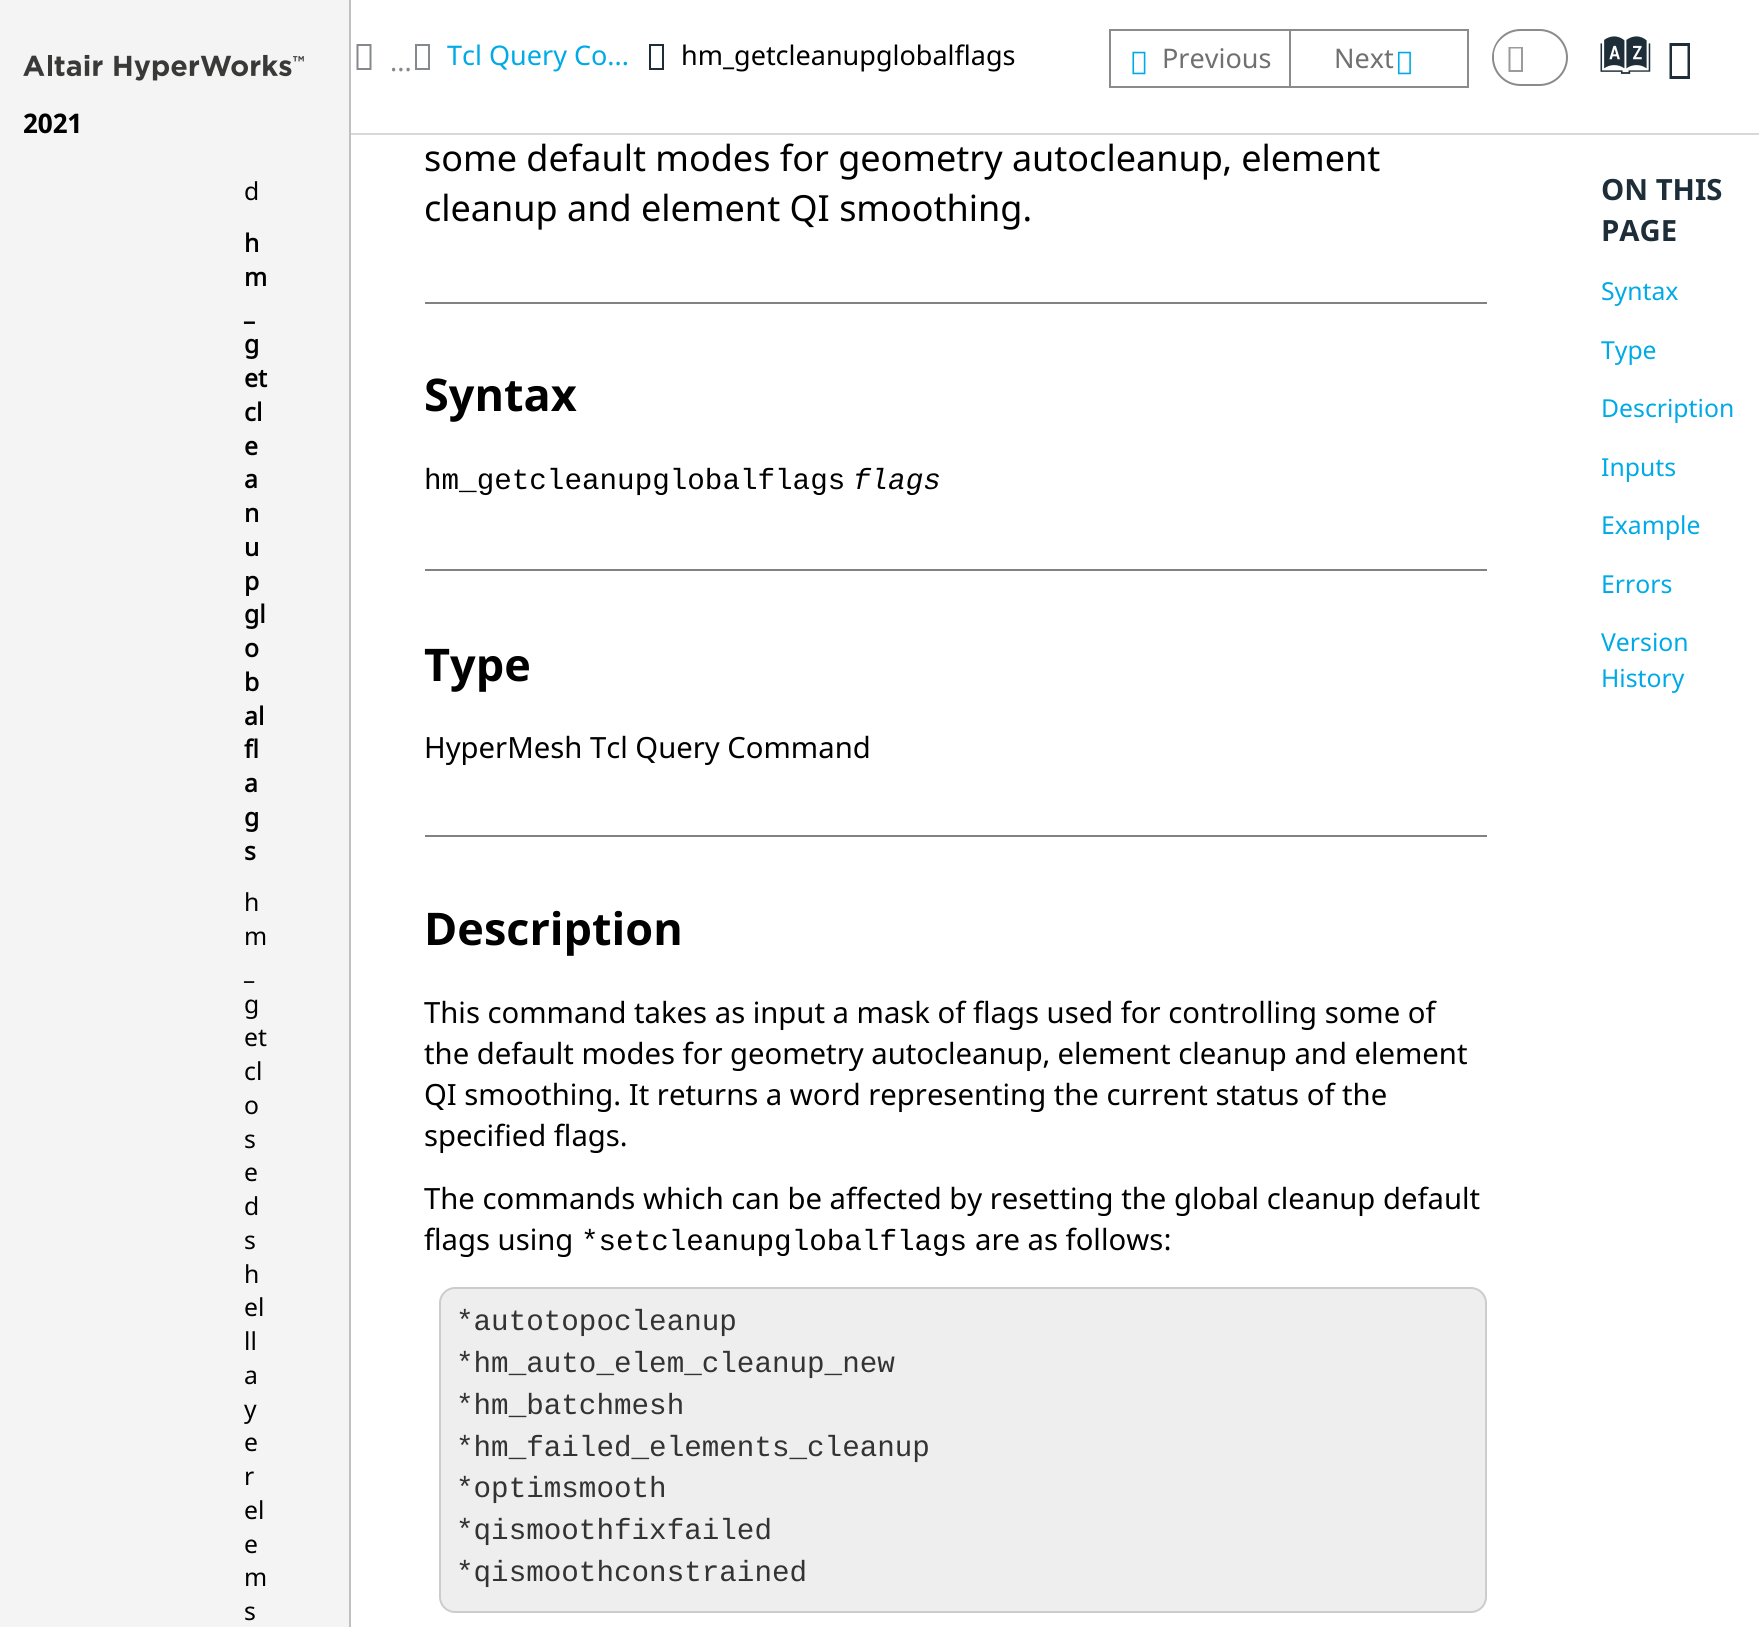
import math
import cairo

surface = cairo.ImageSurface(cairo.FORMAT_RGB24, 1759, 1627)
ctx = cairo.Context(surface)
options = cairo.FontOptions()
options.set_hint_metrics(cairo.HINT_METRICS_OFF)
options.set_hint_style(cairo.HINT_STYLE_NONE)
ctx.set_font_options(options)
ctx.set_miter_limit(4)


def set_color(code):
    ctx.set_source_rgb(*(v / 255 for v in bytes.fromhex(code[-6:])))


def draw_text(x, y, s, family, size, color, bold=False, italic=False):
    ctx.select_font_face(family, cairo.FONT_SLANT_ITALIC if italic else cairo.FONT_SLANT_NORMAL, cairo.FONT_WEIGHT_BOLD if bold else cairo.FONT_WEIGHT_NORMAL)
    ctx.set_font_size(size)
    set_color(color)
    ctx.move_to(x, y)
    ctx.show_text(s)


def fill_rect(x, y, w, h, color):
    set_color(color)
    ctx.rectangle(x, y, w, h)
    ctx.fill()


def rounded_rect(x, y, w, h, r):
    ctx.new_sub_path()
    for i, (u, v) in enumerate([(x + w - r, y + h - r), (x + r, y + h - r), (x + r, y + r), (x + w - r, y + r)]):
        ctx.arc(u, v, r, i * math.pi / 2, (i + 1) * math.pi / 2)
    ctx.close_path()


def draw_image(path, x, y, w, h):
    ctx.save()
    ctx.set_source_surface(cairo.ImageSurface.create_from_png(path), x, y)
    ctx.rectangle(x, y, w, h)
    ctx.fill()
    ctx.restore()


set_color("#ffffff")
ctx.paint()
fill_rect(0, 0, 349, 1627, "#f4f4f4")
fill_rect(349, 0, 2, 1627, "#c0c0c0")
draw_image("assets/img1.png", 23, 54, 281, 27)
draw_text(23, 133, "2021", "Noto Sans", 27, "#000000", bold=True)
draw_text(244, 200, "d", "Noto Sans", 24.75, "#000000")
draw_text(244, 252, "h", "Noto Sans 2", 24.75, "#000000", bold=True)
draw_text(244, 286, "m", "Noto Sans 2", 24.75, "#000000", bold=True)
draw_text(244, 320, "_", "Noto Sans 2", 24.75, "#000000", bold=True)
draw_text(244, 353, "g", "Noto Sans 2", 24.75, "#000000", bold=True)
draw_text(244, 387, "et", "Noto Sans 2", 24.75, "#000000", bold=True)
draw_text(244, 421, "cl", "Noto Sans 2", 24.75, "#000000", bold=True)
draw_text(244, 455, "e", "Noto Sans 2", 24.75, "#000000", bold=True)
draw_text(244, 488, "a", "Noto Sans 2", 24.75, "#000000", bold=True)
draw_text(244, 522, "n", "Noto Sans 2", 24.75, "#000000", bold=True)
draw_text(244, 556, "u", "Noto Sans 2", 24.75, "#000000", bold=True)
draw_text(244, 590, "p", "Noto Sans 2", 24.75, "#000000", bold=True)
draw_text(244, 623, "gl", "Noto Sans 2", 24.75, "#000000", bold=True)
draw_text(244, 657, "o", "Noto Sans 2", 24.75, "#000000", bold=True)
draw_text(244, 691, "b", "Noto Sans 2", 24.75, "#000000", bold=True)
draw_text(244, 725, "al", "Noto Sans 2", 24.75, "#000000", bold=True)
draw_text(244, 758, "fl", "Noto Sans 2", 24.75, "#000000", bold=True)
draw_text(244, 792, "a", "Noto Sans 2", 24.75, "#000000", bold=True)
draw_text(244, 826, "g", "Noto Sans 2", 24.75, "#000000", bold=True)
draw_text(244, 860, "s", "Noto Sans 2", 24.75, "#000000", bold=True)
draw_text(244, 911, "h", "Noto Sans", 24.75, "#000000")
draw_text(244, 945, "m", "Noto Sans", 24.75, "#000000")
draw_text(244, 979, "_", "Noto Sans", 24.75, "#000000")
draw_text(244, 1013, "g", "Noto Sans", 24.75, "#000000")
draw_text(244, 1046, "et", "Noto Sans", 24.75, "#000000")
draw_text(244, 1080, "cl", "Noto Sans", 24.75, "#000000")
draw_text(244, 1114, "o", "Noto Sans", 24.75, "#000000")
draw_text(244, 1148, "s", "Noto Sans", 24.75, "#000000")
draw_text(244, 1181, "e", "Noto Sans", 24.75, "#000000")
draw_text(244, 1215, "d", "Noto Sans", 24.75, "#000000")
draw_text(244, 1249, "s", "Noto Sans", 24.75, "#000000")
draw_text(244, 1283, "h", "Noto Sans", 24.75, "#000000")
draw_text(244, 1316, "el", "Noto Sans", 24.75, "#000000")
draw_text(244, 1350, "ll", "Noto Sans", 24.75, "#000000")
draw_text(244, 1384, "a", "Noto Sans", 24.75, "#000000")
draw_text(244, 1418, "y", "Noto Sans", 24.75, "#000000")
draw_text(244, 1451, "e", "Noto Sans", 24.75, "#000000")
draw_text(244, 1485, "r", "Noto Sans", 24.75, "#000000")
draw_text(244, 1519, "el", "Noto Sans", 24.75, "#000000")
draw_text(244, 1553, "e", "Noto Sans", 24.75, "#000000")
draw_text(244, 1586, "m", "Noto Sans", 24.75, "#000000")
draw_text(244, 1620, "s", "Noto Sans", 24.75, "#000000")
fill_rect(351, 133, 1408, 2, "#d8d8d8")
set_color("#85898d")
ctx.new_path()
ctx.move_to(356.5, 70)
ctx.line_to(356.5, 44)
ctx.line_to(371.5, 44)
ctx.line_to(371.5, 70)
ctx.close_path()
ctx.move_to(358.5, 68)
ctx.line_to(369.5, 68)
ctx.line_to(369.5, 46)
ctx.line_to(358.5, 46)
ctx.close_path()
ctx.fill()
draw_text(390, 71, "...", "Noto Sans", 27, "#85898d")
ctx.new_path()
ctx.move_to(415, 70)
ctx.line_to(415, 44)
ctx.line_to(430, 44)
ctx.line_to(430, 70)
ctx.close_path()
ctx.move_to(417, 68)
ctx.line_to(428, 68)
ctx.line_to(428, 46)
ctx.line_to(417, 46)
ctx.close_path()
ctx.fill()
draw_text(447, 65, "Tcl", "Noto Sans", 27, "#00aae6")
draw_text(489, 65, "Query Co…", "Noto Sans", 27, "#00aae6")
set_color("#1d2e38")
ctx.new_path()
ctx.move_to(649, 70)
ctx.line_to(649, 44)
ctx.line_to(664, 44)
ctx.line_to(664, 70)
ctx.close_path()
ctx.move_to(651, 68)
ctx.line_to(662, 68)
ctx.line_to(662, 46)
ctx.line_to(651, 46)
ctx.close_path()
ctx.fill()
draw_text(681, 65, "hm_getcleanupglobalflags", "Noto Sans", 27, "#000000")
fill_rect(1109, 29, 180, 2, "#8b8b8b")
fill_rect(1109, 86, 180, 2, "#8b8b8b")
fill_rect(1109, 29, 2, 59, "#8b8b8b")
draw_image("assets/img2.png", 1132, 51, 14, 24)
draw_text(1162, 68, "Previous", "Noto Sans", 27, "#707070")
ctx.rectangle(1290, 30, 178, 57)
set_color("#8b8b8b")
ctx.stroke()
draw_text(1334, 68, "Next", "Noto Sans", 27, "#707070")
draw_image("assets/img3.png", 1397, 51, 14, 24)
rounded_rect(1493, 30, 74, 55, 27.5)
set_color("#8b8b8b")
ctx.stroke()
set_color("#ffffff")
rounded_rect(1494, 34, 45, 43, 21.5)
ctx.fill()
set_color("#9b9b9b")
ctx.new_path()
ctx.move_to(1508.5, 72)
ctx.line_to(1508.5, 47)
ctx.line_to(1523, 47)
ctx.line_to(1523, 72)
ctx.close_path()
ctx.move_to(1510.5, 70)
ctx.line_to(1521, 70)
ctx.line_to(1521, 48.5)
ctx.line_to(1510.5, 48.5)
ctx.close_path()
ctx.fill()
draw_text(1606, 80, "a", "Oxygen", 53, "#1d2e38")
ctx.new_path()
ctx.move_to(1669.5, 79)
ctx.line_to(1669.5, 43)
ctx.line_to(1690, 43)
ctx.line_to(1690, 79)
ctx.close_path()
ctx.move_to(1672, 76)
ctx.line_to(1687.5, 76)
ctx.line_to(1687.5, 46)
ctx.line_to(1672, 46)
ctx.close_path()
ctx.fill()
draw_text(424, 171, "some default modes for geometry autocleanup, element", "Noto Sans", 36, "#000000")
draw_text(424, 221, "cleanup and element QI smoothing.", "Noto Sans", 36, "#000000")
fill_rect(425, 302, 1062, 2, "#828282")
draw_text(424, 411, "Syntax", "Noto Sans", 45, "#000000", bold=True)
draw_text(424, 489, "hm_getcleanupglobalflags", "Liberation Mono", 29.25, "#000000")
draw_text(853, 489, "flags", "Liberation Mono", 29.25, "#000000", italic=True)
fill_rect(425, 569, 1062, 2, "#828282")
draw_text(424, 681, "Type", "Noto Sans", 45, "#000000", bold=True)
draw_text(424, 758, "HyperMesh Tcl Query Command", "Noto Sans", 29.25, "#000000")
fill_rect(425, 835, 1062, 2, "#828282")
draw_text(424, 945, "Description", "Noto Sans", 45, "#000000", bold=True)
draw_text(424, 1023, "This command takes as input a mask of flags used for controlling some of", "Noto Sans", 29.25, "#000000")
draw_text(424, 1064, "the default modes for geometry autocleanup, element cleanup and element", "Noto Sans", 29.25, "#000000")
draw_text(424, 1105, "QI smoothing. It returns a word representing the current status of the", "Noto Sans", 29.25, "#000000")
draw_text(424, 1146, "specified flags.", "Noto Sans", 29.25, "#000000")
draw_text(424, 1209, "The commands which can be affected by resetting the global cleanup default", "Noto Sans", 29.25, "#000000")
draw_text(424, 1250, "flags using", "Noto Sans", 29.25, "#000000")
draw_text(581, 1250, "*setcleanupglobalflags", "Liberation Mono", 29.25, "#000000")
draw_text(975, 1250, "are as follows:", "Noto Sans", 29.25, "#000000")
set_color("#eeeeee")
rounded_rect(440, 1288, 1046, 324, 15)
ctx.fill_preserve()
set_color("#cccccc")
ctx.stroke()
draw_text(456, 1330, "*autotopocleanup", "Liberation Mono", 29.25, "#333333")
draw_text(456, 1372, "*hm_auto_elem_cleanup_new", "Liberation Mono", 29.25, "#333333")
draw_text(456, 1414, "*hm_batchmesh", "Liberation Mono", 29.25, "#333333")
draw_text(456, 1456, "*hm_failed_elements_cleanup", "Liberation Mono", 29.25, "#333333")
draw_text(456, 1497, "*optimsmooth", "Liberation Mono", 29.25, "#333333")
draw_text(456, 1539, "*qismoothfixfailed", "Liberation Mono", 29.25, "#333333")
draw_text(456, 1581, "*qismoothconstrained", "Liberation Mono", 29.25, "#333333")
draw_text(1601, 200, "ON THIS", "Noto Sans", 29.25, "#1d2e38", bold=True)
draw_text(1601, 241, "PAGE", "Noto Sans", 29.25, "#1d2e38", bold=True)
draw_text(1601, 300, "Syntax", "Noto Sans", 24.75, "#00aae6")
draw_text(1601, 359, "Type", "Noto Sans", 24.75, "#00aae6")
draw_text(1601, 417, "Description", "Noto Sans", 24.75, "#00aae6")
draw_text(1601, 476, "Inputs", "Noto Sans", 24.75, "#00aae6")
draw_text(1601, 534, "Example", "Noto Sans", 24.75, "#00aae6")
draw_text(1601, 593, "Errors", "Noto Sans", 24.75, "#00aae6")
draw_text(1601, 651, "Version", "Noto Sans", 24.75, "#00aae6")
draw_text(1601, 687, "History", "Noto Sans", 24.75, "#00aae6")
surface.write_to_png("output.png")
